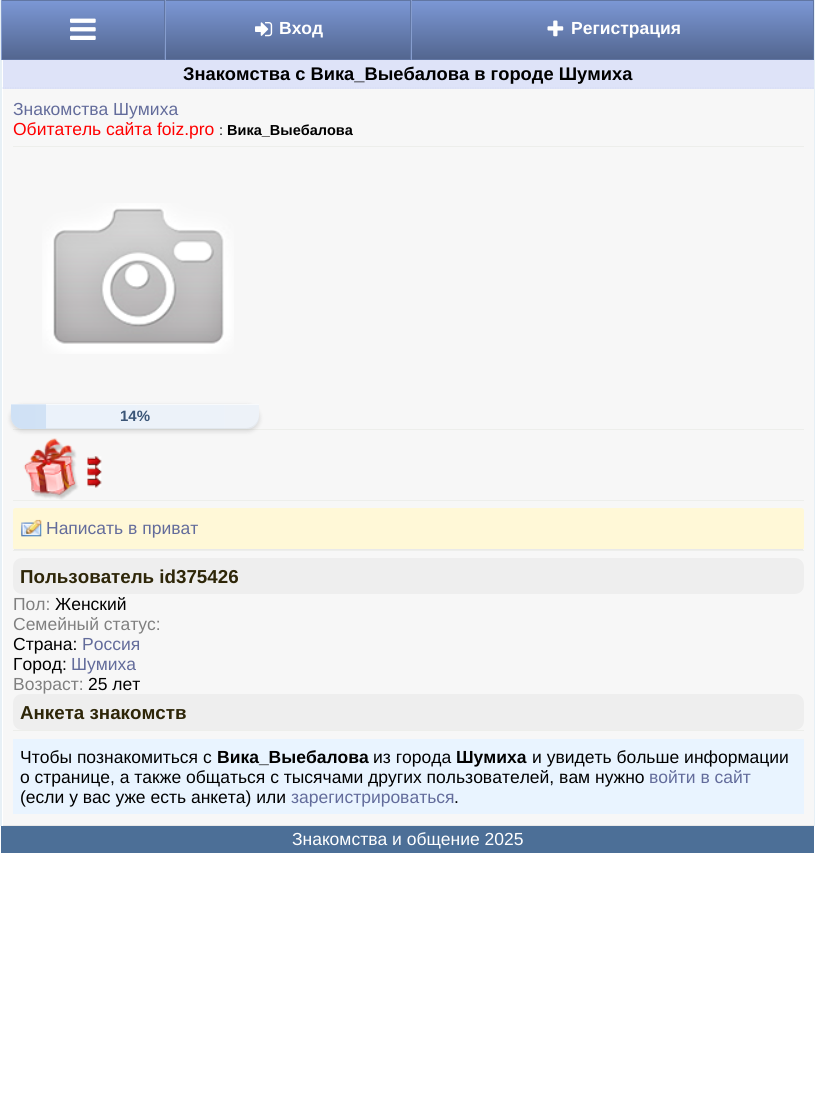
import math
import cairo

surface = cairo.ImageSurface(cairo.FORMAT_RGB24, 815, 1109)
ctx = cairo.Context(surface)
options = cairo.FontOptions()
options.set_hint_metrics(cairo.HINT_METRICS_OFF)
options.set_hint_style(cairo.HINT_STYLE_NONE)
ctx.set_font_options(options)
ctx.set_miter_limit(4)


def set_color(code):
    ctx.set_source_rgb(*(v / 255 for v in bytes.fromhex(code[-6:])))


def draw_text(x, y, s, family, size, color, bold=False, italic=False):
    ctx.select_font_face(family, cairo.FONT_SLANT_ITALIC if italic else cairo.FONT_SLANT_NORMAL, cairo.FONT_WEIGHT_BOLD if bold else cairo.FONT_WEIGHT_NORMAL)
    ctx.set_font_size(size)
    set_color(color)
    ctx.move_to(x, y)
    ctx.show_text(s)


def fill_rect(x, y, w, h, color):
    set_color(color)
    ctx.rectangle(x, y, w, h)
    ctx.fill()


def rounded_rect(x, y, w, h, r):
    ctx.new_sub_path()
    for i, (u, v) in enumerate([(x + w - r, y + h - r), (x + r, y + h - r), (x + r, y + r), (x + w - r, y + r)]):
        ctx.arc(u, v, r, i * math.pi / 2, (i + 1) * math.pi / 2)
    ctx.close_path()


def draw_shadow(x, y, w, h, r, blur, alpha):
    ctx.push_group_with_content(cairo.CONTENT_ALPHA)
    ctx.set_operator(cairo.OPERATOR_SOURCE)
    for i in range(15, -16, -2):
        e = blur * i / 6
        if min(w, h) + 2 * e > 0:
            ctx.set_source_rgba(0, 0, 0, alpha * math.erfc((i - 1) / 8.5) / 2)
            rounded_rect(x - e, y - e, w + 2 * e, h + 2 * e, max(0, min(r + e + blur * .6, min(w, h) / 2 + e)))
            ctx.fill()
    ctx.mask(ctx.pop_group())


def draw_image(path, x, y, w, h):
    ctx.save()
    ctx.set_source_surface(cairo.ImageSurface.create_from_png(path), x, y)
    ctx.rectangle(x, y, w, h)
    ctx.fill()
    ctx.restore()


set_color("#ffffff")
ctx.paint()
fill_rect(814, 0, 1, 826, "#e7f0f6")
fill_rect(0, 0, 1, 826, "#e7f0f6")
gradient = cairo.LinearGradient(1.2, 0, 1.2, 60)
gradient.add_color_stop_rgba(0, 0.486, 0.596, 0.839, 1)
gradient.add_color_stop_rgba(1, 0.322, 0.396, 0.557, 1)
ctx.set_source(gradient)
ctx.rectangle(2, 1, 811, 58)
ctx.fill()
fill_rect(1, 0, 813, 1, "#6176a3")
fill_rect(164, 0, 1, 60, "#6176a3")
fill_rect(1, 59, 164, 1, "#6176a3")
fill_rect(1, 0, 1, 60, "#869dce")
draw_image("assets/img1.png", 70, 18, 26, 22)
fill_rect(410, 0, 1, 60, "#6176a3")
fill_rect(165, 59, 246, 1, "#6176a3")
fill_rect(165, 0, 1, 60, "#869dce")
draw_image("assets/img2.png", 255, 22, 18, 15)
draw_text(279, 34, "Вход", "Liberation Sans", 17.5, "#ffffff", bold=True)
fill_rect(813, 0, 1, 60, "#6176a3")
fill_rect(411, 59, 403, 1, "#6176a3")
fill_rect(411, 0, 1, 60, "#869dce")
draw_image("assets/img3.png", 547, 20, 17, 17)
draw_text(571, 34, "Регистрация", "Liberation Sans", 17.5, "#ffffff", bold=True)
fill_rect(1, 60, 1, 766, "#e7f0f6")
fill_rect(3, 60, 811, 29, "#dee3f8")
ctx.new_path()
ctx.move_to(2.5, 88)
ctx.line_to(814, 88)
set_color("#d5dcf4")
ctx.set_line_width(1.2)
ctx.set_dash([1.25, 1.25])
ctx.stroke()
draw_text(183, 80, "Знакомства с Вика_Выебалова в городе Шумиха", "Liberation Sans", 18.3, "#000000", bold=True)
fill_rect(3, 89, 811, 736, "#f7f7f7")
fill_rect(3, 825, 811, 1, "#e9e9e9")
draw_text(13, 115, "Знакомства Шумиха", "Liberation Sans", 17.5, "#636c9b")
draw_text(13, 135, "Обитатель сайта foiz.pro", "Liberation Sans", 17.5, "#ff0000")
draw_text(219, 135, ":", "Liberation Sans", 14.5, "#000000")
draw_text(227, 135, "Вика_Выебалова", "Liberation Sans", 14.5, "#000000", bold=True)
fill_rect(13, 146, 791, 1, "#edeeeb")
draw_image("assets/img4.png", 42, 203, 192, 151)
fill_rect(13, 429, 791, 1, "#edeeeb")
draw_image("assets/img5.png", 23, 438, 79, 62)
set_color("#000000")
draw_shadow(11, 406, 248, 25, 12.5, 2.5, 0.15)
gradient = cairo.LinearGradient(11, 416, 259, 416)
gradient.add_color_stop_rgba(0, 0.918, 0.949, 0.984, 1)
gradient.add_color_stop_rgba(1, 0.929, 0.949, 0.973, 1)
ctx.set_source(gradient)
ctx.new_path()
ctx.move_to(11, 404)
ctx.line_to(259, 404)
ctx.line_to(259, 416.5)
ctx.curve_to(259, 423.5, 253.5, 429, 246.5, 429)
ctx.line_to(23.5, 429)
ctx.curve_to(16.5, 429, 11, 423.5, 11, 416.5)
ctx.close_path()
ctx.fill()
gradient = cairo.LinearGradient(11, 416, 259, 416)
gradient.add_color_stop_rgba(0, 0.969, 0.98, 0.992, 1)
gradient.add_color_stop_rgba(1, 0.973, 0.98, 0.988, 1)
ctx.set_source(gradient)
ctx.rectangle(46, 404, 213, 1)
ctx.fill()
ctx.set_source_rgba(0, 0, 0, 0.05)
ctx.new_path()
ctx.move_to(11, 415)
ctx.line_to(11, 416)
ctx.curve_to(11, 423, 17, 429, 24, 429)
ctx.line_to(246, 429)
ctx.curve_to(253, 429, 259, 423, 259, 416)
ctx.line_to(259, 415)
ctx.curve_to(259, 422, 253, 428, 246, 428)
ctx.line_to(24, 428)
ctx.curve_to(17, 428, 11, 422, 11, 415)
ctx.close_path()
ctx.fill()
gradient = cairo.LinearGradient(11, 416, 259, 416)
gradient.add_color_stop_rgba(0, 0.812, 0.882, 0.961, 1)
gradient.add_color_stop_rgba(1, 0.867, 0.906, 0.949, 1)
ctx.set_source(gradient)
ctx.new_path()
ctx.move_to(11, 404)
ctx.line_to(46, 404)
ctx.line_to(46, 429)
ctx.line_to(23.5, 429)
ctx.curve_to(16.5, 429, 11, 423.5, 11, 416.5)
ctx.close_path()
ctx.fill()
fill_rect(11, 404, 35, 1, "#deeaf8")
draw_text(120, 421, "14%", "Liberation Sans", 15, "#3b5677", bold=True)
fill_rect(13, 500, 791, 1, "#edeeeb")
set_color("#fff8d7")
rounded_rect(13, 508, 791, 42, 2.5)
ctx.fill()
fill_rect(14, 549, 789, 1, "#e9e9e9")
draw_image("assets/img6.png", 21, 519, 21, 18)
draw_text(46, 534, "Написать в приват", "Liberation Sans", 17.5, "#636c9b")
fill_rect(13, 550, 791, 1, "#edeeeb")
set_color("#eeeeee")
rounded_rect(13, 558, 791, 36, 9)
ctx.fill()
draw_text(20, 583, "Пользователь id375426", "Liberation Sans", 18.75, "#2e2608", bold=True)
draw_text(13, 610, "Пол:", "Liberation Sans", 17.5, "#808080")
draw_text(55, 610, "Женский", "Liberation Sans", 17.5, "#000000")
draw_text(13, 630, "Семейный статус:", "Liberation Sans", 17.5, "#808080")
draw_text(13, 650, "Страна:", "Liberation Sans", 17.5, "#000000")
draw_text(82, 650, "Россия", "Liberation Sans", 17.5, "#636c9b")
draw_text(13, 670, "Город:", "Liberation Sans", 17.5, "#000000")
draw_text(71, 670, "Шумиха", "Liberation Sans", 17.5, "#636c9b")
draw_text(13, 690, "Возраст:", "Liberation Sans", 17.5, "#808080")
draw_text(88, 690, "25 лет", "Liberation Sans", 17.5, "#000000")
set_color("#eeeeee")
rounded_rect(13, 694, 791, 36, 9)
ctx.fill()
draw_text(20, 719, "Анкета знакомств", "Liberation Sans", 18.75, "#2e2608", bold=True)
fill_rect(13, 730, 791, 1, "#edeeeb")
fill_rect(13, 739, 791, 75, "#e9f4ff")
draw_text(20, 763, "Чтобы познакомиться с", "Liberation Sans", 17.5, "#000000")
draw_text(217, 763, "Вика_Выебалова", "Liberation Sans", 17.5, "#000000", bold=True)
draw_text(373, 763, "из города", "Liberation Sans", 17.5, "#000000")
draw_text(456, 763, "Шумиха", "Liberation Sans", 17.5, "#000000", bold=True)
draw_text(532, 763, "и увидеть больше информации", "Liberation Sans", 17.5, "#000000")
draw_text(20, 783, "о странице, а также общаться с тысячами других пользователей, вам нужно", "Liberation Sans", 17.5, "#000000")
draw_text(649, 783, "войти в сайт", "Liberation Sans", 17.5, "#636c9b")
draw_text(20, 803, "(если у вас уже есть анкета) или", "Liberation Sans", 17.5, "#000000")
draw_text(291, 803, "зарегистрироваться", "Liberation Sans", 17.5, "#636c9b")
draw_text(454, 803, ".", "Liberation Sans", 17.5, "#000000")
fill_rect(1, 826, 813, 27, "#4c6f97")
draw_text(292, 845, "Знакомства и общение 2025", "Liberation Sans", 17.5, "#ffffff")
surface.write_to_png("output.png")
